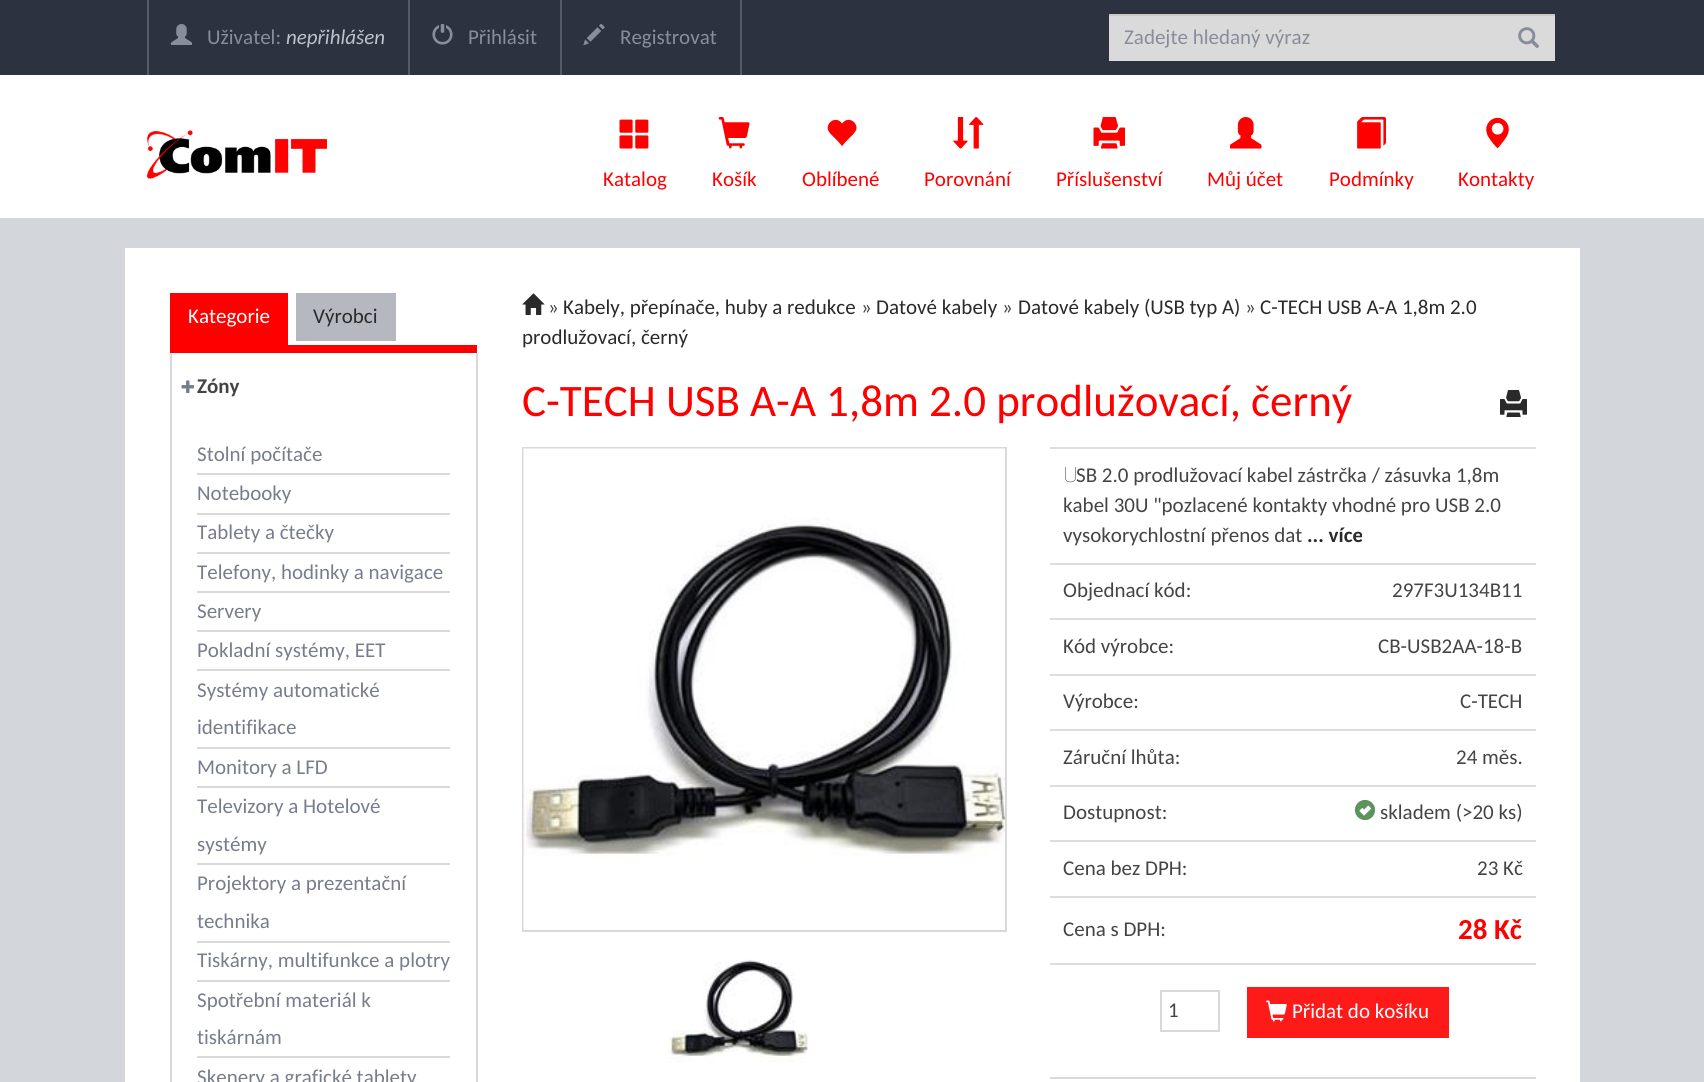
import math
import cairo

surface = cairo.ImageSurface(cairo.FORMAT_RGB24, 1704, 1082)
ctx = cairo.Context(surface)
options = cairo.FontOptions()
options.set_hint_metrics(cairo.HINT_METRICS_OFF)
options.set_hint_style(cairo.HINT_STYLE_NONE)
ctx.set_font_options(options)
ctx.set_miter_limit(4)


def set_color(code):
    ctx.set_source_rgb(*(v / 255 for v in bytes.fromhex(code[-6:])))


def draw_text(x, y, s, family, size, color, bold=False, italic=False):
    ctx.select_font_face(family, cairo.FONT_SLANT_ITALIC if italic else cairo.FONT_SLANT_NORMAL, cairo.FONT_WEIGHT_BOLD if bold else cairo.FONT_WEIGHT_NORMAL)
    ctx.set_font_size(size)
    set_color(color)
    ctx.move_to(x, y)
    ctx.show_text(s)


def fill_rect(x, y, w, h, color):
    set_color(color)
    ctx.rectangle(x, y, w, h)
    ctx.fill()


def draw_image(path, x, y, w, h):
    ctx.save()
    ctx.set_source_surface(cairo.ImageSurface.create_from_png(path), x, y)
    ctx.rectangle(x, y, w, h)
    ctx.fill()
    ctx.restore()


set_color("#d3d6db")
ctx.paint()
fill_rect(0, 0, 1704, 75, "#2c323f")
fill_rect(147, 0, 2, 75, "#565b67")
draw_image("assets/img1.png", 171, 24, 21, 21)
draw_text(207, 44, "Uživatel:", "Carlito", 21, "#888d9b")
draw_text(286, 44, "nepřihlášen", "Carlito", 21, "#bfc2ca", italic=True)
fill_rect(408, 0, 2, 75, "#565b67")
draw_image("assets/img2.png", 432, 24, 21, 21)
draw_text(468, 44, "Přihlásit", "Carlito", 21, "#888d9b")
fill_rect(740, 0, 2, 75, "#565b67")
fill_rect(560, 0, 2, 75, "#565b67")
draw_image("assets/img3.png", 583, 23, 22, 23)
draw_text(620, 44, "Registrovat", "Carlito", 21, "#888d9b")
fill_rect(1109, 16, 446, 45, "#dbdada")
fill_rect(1109, 14, 447, 2, "#cbcaca")
ctx.rectangle(1108, 13, 448, 49)
set_color("#2c323f")
ctx.stroke()
draw_text(1124, 44, "Zadejte hledaný výraz", "Carlito", 21, "#888d9b")
draw_image("assets/img4.png", 1518, 27, 22, 21)
fill_rect(0, 75, 1704, 143, "#ffffff")
draw_image("assets/img5.png", 147, 130, 180, 49)
draw_image("assets/img6.png", 619, 119, 30, 30)
draw_text(603, 186, "Katalog", "Carlito", 21, "#ff0000")
draw_image("assets/img7.png", 718, 117, 32, 32)
draw_text(712, 186, "Košík", "Carlito", 21, "#ff0000")
draw_image("assets/img8.png", 827, 119, 30, 27)
draw_text(802, 186, "Oblíbené", "Carlito", 21, "#ff0000")
draw_image("assets/img9.png", 953, 117, 31, 32)
draw_text(924, 186, "Porovnání", "Carlito", 21, "#ff0000")
draw_image("assets/img10.png", 1093, 117, 32, 32)
draw_text(1056, 186, "Příslušenství", "Carlito", 21, "#ff0000")
draw_image("assets/img11.png", 1230, 117, 32, 32)
draw_text(1207, 186, "Můj účet", "Carlito", 21, "#ff0000")
draw_image("assets/img12.png", 1357, 117, 29, 32)
draw_text(1329, 186, "Podmínky", "Carlito", 21, "#ff0000")
draw_image("assets/img13.png", 1486, 117, 23, 32)
draw_text(1458, 186, "Kontakty", "Carlito", 21, "#ff0000")
fill_rect(125, 248, 1455, 834, "#ffffff")
fill_rect(170, 345, 307, 8, "#ff0000")
fill_rect(170, 293, 118, 52, "#ff0000")
draw_text(188, 323, "Kategorie", "Carlito", 21, "#ffffff")
fill_rect(296, 293, 100, 48, "#b5b9bf")
draw_text(313, 323, "Výrobci", "Carlito", 21, "#2a2a2a")
fill_rect(476, 353, 2, 729, "#d9d9d9")
fill_rect(170, 353, 2, 729, "#d9d9d9")
draw_image("assets/img14.png", 181, 380, 13, 13)
draw_text(197, 393, "Zóny", "Carlito", 21, "#444444", bold=True)
fill_rect(197, 473, 253, 2, "#d9d9d9")
draw_text(197, 461, "Stolní počítače", "Carlito", 21, "#777d8c")
fill_rect(197, 513, 253, 2, "#d9d9d9")
draw_text(197, 500, "Notebooky", "Carlito", 21, "#777d8c")
fill_rect(197, 552, 253, 2, "#d9d9d9")
draw_text(197, 539, "Tablety a čtečky", "Carlito", 21, "#777d8c")
fill_rect(197, 591, 253, 2, "#d9d9d9")
draw_text(197, 579, "Telefony, hodinky a navigace", "Carlito", 21, "#777d8c")
fill_rect(197, 630, 253, 2, "#d9d9d9")
draw_text(197, 618, "Servery", "Carlito", 21, "#777d8c")
fill_rect(197, 669, 253, 2, "#d9d9d9")
draw_text(197, 657, "Pokladní systémy, EET", "Carlito", 21, "#777d8c")
fill_rect(197, 747, 253, 2, "#d9d9d9")
draw_text(197, 697, "Systémy automatické", "Carlito", 21, "#777d8c")
draw_text(197, 734, "identifikace", "Carlito", 21, "#777d8c")
fill_rect(197, 786, 253, 2, "#d9d9d9")
draw_text(197, 774, "Monitory a LFD", "Carlito", 21, "#777d8c")
fill_rect(197, 863, 253, 2, "#d9d9d9")
draw_text(197, 813, "Televizory a Hotelové", "Carlito", 21, "#777d8c")
draw_text(197, 851, "systémy", "Carlito", 21, "#777d8c")
fill_rect(197, 941, 253, 2, "#d9d9d9")
draw_text(197, 890, "Projektory a prezentační", "Carlito", 21, "#777d8c")
draw_text(197, 928, "technika", "Carlito", 21, "#777d8c")
fill_rect(197, 980, 253, 2, "#d9d9d9")
draw_text(197, 967, "Tiskárny, multifunkce a plotry", "Carlito", 21, "#777d8c")
fill_rect(197, 1056, 253, 2, "#d9d9d9")
draw_text(197, 1007, "Spotřební materiál k", "Carlito", 21, "#777d8c")
draw_text(197, 1044, "tiskárnám", "Carlito", 21, "#777d8c")
draw_text(197, 1084, "Skenery a grafické tablety", "Carlito", 21, "#777d8c")
draw_image("assets/img15.png", 522, 293, 23, 22)
draw_text(548, 314, "»", "Carlito", 21, "#444444")
draw_text(563, 314, "Kabely, přepínače, huby a redukce", "Carlito", 21, "#2a2a2a")
draw_text(861, 314, "»", "Carlito", 21, "#444444")
draw_text(876, 314, "Datové kabely", "Carlito", 21, "#2a2a2a")
draw_text(1002, 314, "»", "Carlito", 21, "#444444")
draw_text(1018, 314, "Datové kabely (USB typ A)", "Carlito", 21, "#2a2a2a")
draw_text(1245, 314, "»", "Carlito", 21, "#444444")
draw_text(1260, 314, "C-TECH USB A-A 1,8m 2.0", "Carlito", 21, "#2a2a2a")
draw_text(522, 344, "prodlužovací, černý", "Carlito", 21, "#2a2a2a")
draw_text(522, 416, "C-TECH USB A-A 1,8m 2.0 prodlužovací, černý", "Carlito", 45, "#ff0000")
draw_image("assets/img16.png", 1500, 390, 27, 27)
ctx.rectangle(523, 448, 483, 483)
set_color("#d9d9d9")
ctx.stroke()
draw_image("assets/img17.png", 523, 448, 482, 482)
draw_image("assets/img18.png", 669, 959, 140, 104)
fill_rect(1050, 447, 486, 2, "#dddddd")
draw_text(1063, 482, "U", "Noto Sans Thin", 21, "#444444")
draw_text(1076, 482, "SB 2.0 prodlužovací kabel zástrčka / zásuvka 1,8m", "Carlito", 21, "#444444")
draw_text(1063, 512, "kabel 30U \"pozlacené kontakty vhodné pro USB 2.0", "Carlito", 21, "#444444")
draw_text(1063, 542, "vysokorychlostní přenos dat", "Carlito", 21, "#444444")
draw_text(1307, 542, "... více", "Carlito", 21, "#2a2a2a", bold=True)
draw_text(1063, 597, "Objednací kód:", "Carlito", 21, "#444444")
fill_rect(1050, 563, 486, 2, "#dddddd")
draw_text(1392, 597, "297F3U134B11", "Carlito", 21, "#444444")
draw_text(1063, 653, "Kód výrobce:", "Carlito", 21, "#444444")
fill_rect(1050, 618, 486, 2, "#dddddd")
draw_text(1378, 653, "CB-USB2AA-18-B", "Carlito", 21, "#444444")
draw_text(1063, 708, "Výrobce:", "Carlito", 21, "#444444")
fill_rect(1050, 674, 486, 2, "#dddddd")
draw_text(1460, 708, "C-TECH", "Carlito", 21, "#444444")
draw_text(1063, 764, "Záruční lhůta:", "Carlito", 21, "#444444")
fill_rect(1050, 729, 486, 2, "#dddddd")
draw_text(1456, 764, "24 měs.", "Carlito", 21, "#444444")
draw_text(1063, 819, "Dostupnost:", "Carlito", 21, "#444444")
fill_rect(1050, 785, 486, 2, "#dddddd")
draw_image("assets/img19.png", 1354, 799, 22, 22)
draw_text(1380, 819, "skladem (>20 ks)", "Carlito", 21, "#444444")
draw_text(1063, 875, "Cena bez DPH:", "Carlito", 21, "#444444")
fill_rect(1050, 840, 486, 2, "#dddddd")
draw_text(1477, 875, "23 Kč", "Carlito", 21, "#444444")
draw_text(1063, 936, "Cena s DPH:", "Carlito", 21, "#444444")
fill_rect(1050, 896, 486, 2, "#dddddd")
draw_text(1458, 939, "28 Kč", "Carlito", 29, "#ff0000", bold=True)
fill_rect(1050, 963, 486, 2, "#dddddd")
ctx.rectangle(1161, 991, 58, 40)
set_color("#d9d9d9")
ctx.stroke()
draw_text(1168, 1017, "1", "Carlito", 21, "#444444")
fill_rect(1247, 987, 202, 51, "#ff1a1a")
draw_image("assets/img20.png", 1266, 1000, 21, 22)
draw_text(1292, 1018, "Přidat do košíku", "Carlito", 21, "#ffffff")
fill_rect(1050, 1077, 486, 2, "#d9d9d9")
surface.write_to_png("output.png")
